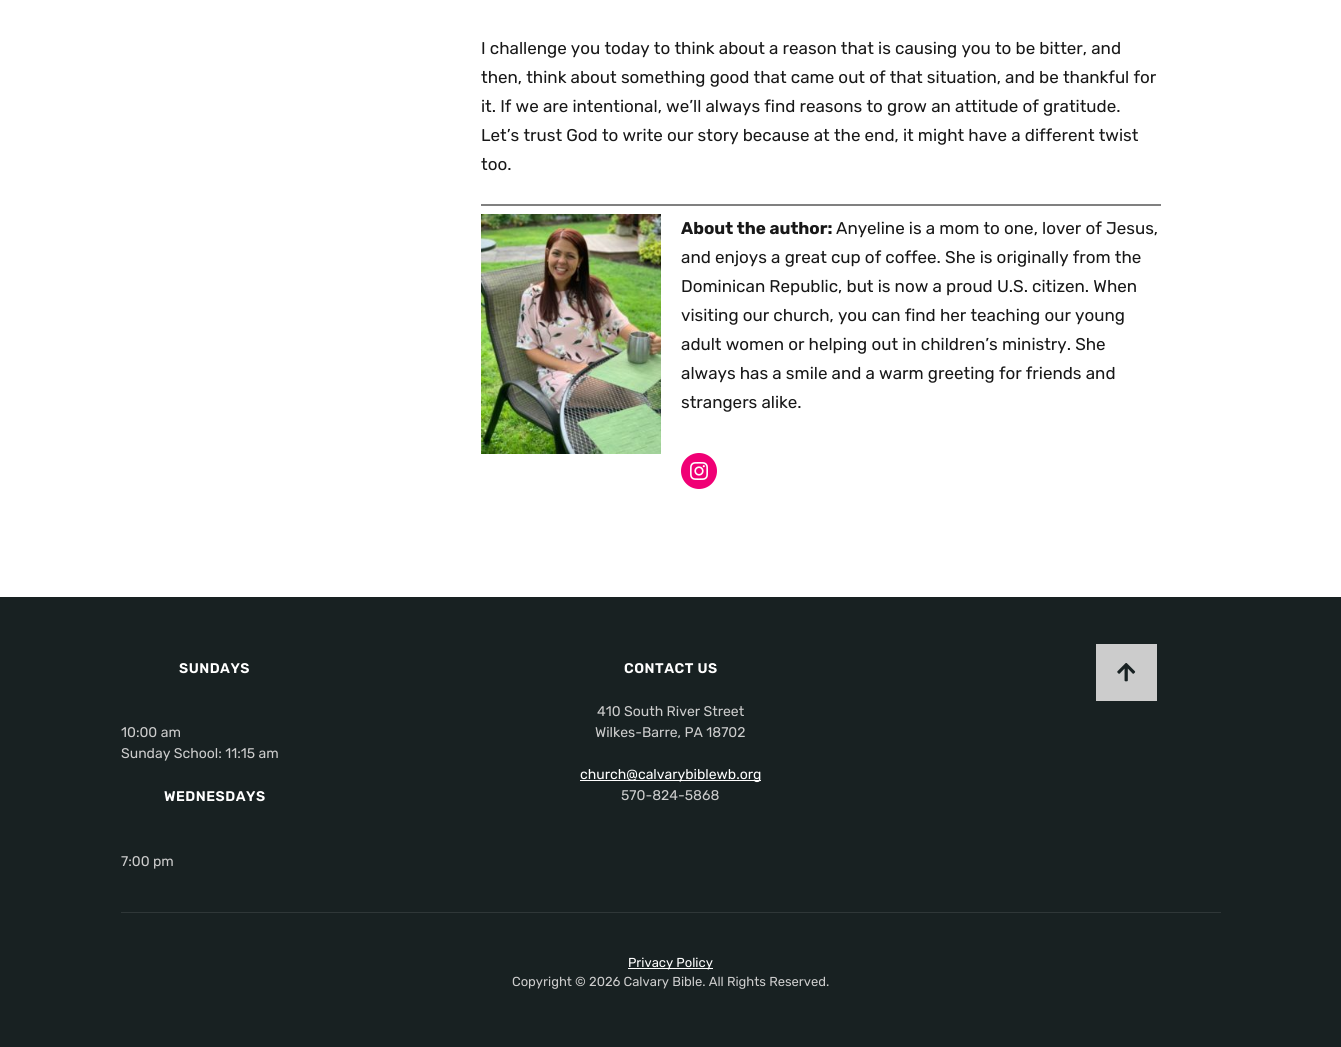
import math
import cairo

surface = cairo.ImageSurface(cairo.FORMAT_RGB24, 1341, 1047)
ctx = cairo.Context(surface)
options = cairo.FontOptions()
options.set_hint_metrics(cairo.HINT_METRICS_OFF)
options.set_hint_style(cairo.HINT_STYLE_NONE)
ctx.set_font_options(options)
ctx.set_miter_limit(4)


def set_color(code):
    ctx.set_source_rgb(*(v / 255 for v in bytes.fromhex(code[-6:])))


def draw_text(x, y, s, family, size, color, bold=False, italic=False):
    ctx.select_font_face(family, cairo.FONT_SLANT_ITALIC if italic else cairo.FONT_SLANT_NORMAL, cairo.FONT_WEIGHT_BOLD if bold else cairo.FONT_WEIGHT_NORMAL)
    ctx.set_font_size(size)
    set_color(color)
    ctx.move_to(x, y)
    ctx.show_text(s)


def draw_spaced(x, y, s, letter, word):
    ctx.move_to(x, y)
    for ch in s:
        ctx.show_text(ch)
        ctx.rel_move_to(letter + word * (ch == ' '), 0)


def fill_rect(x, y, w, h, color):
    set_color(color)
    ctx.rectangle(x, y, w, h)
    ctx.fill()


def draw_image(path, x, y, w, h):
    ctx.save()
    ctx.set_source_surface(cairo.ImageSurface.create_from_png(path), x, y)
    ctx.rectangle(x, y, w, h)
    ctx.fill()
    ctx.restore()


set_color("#ffffff")
ctx.paint()
draw_text(481, 54, "I challenge you today to think about a reason that is causing you to be bitter, and", "Rubik", 17, "#181818")
draw_text(481, 83, "then, think about something good that came out of that situation, and be thankful for", "Rubik", 17, "#181818")
draw_text(481, 112, "it. If we are intentional, we’ll always find reasons to grow an attitude of gratitude.", "Rubik", 17, "#181818")
draw_text(481, 141, "Let’s trust God to write our story because at the end, it might have a different twist", "Rubik", 17, "#181818")
draw_text(481, 170, "too.", "Rubik", 17, "#181818")
fill_rect(481, 204, 680, 2, "#808080")
draw_image("assets/img1.png", 481, 214, 180, 240)
draw_text(681, 234, "About the author:", "Rubik", 17, "#181818", bold=True)
draw_text(836, 234, "Anyeline is a mom to one, lover of Jesus,", "Rubik", 17, "#181818")
draw_text(681, 263, "and enjoys a great cup of coffee. She is originally from the", "Rubik", 17, "#181818")
draw_text(681, 292, "Dominican Republic, but is now a proud U.S. citizen. When", "Rubik", 17, "#181818")
draw_text(681, 321, "visiting our church, you can find her teaching our young", "Rubik", 17, "#181818")
draw_text(681, 350, "adult women or helping out in children’s ministry. She", "Rubik", 17, "#181818")
draw_text(681, 379, "always has a smile and a warm greeting for friends and", "Rubik", 17, "#181818")
draw_text(681, 408, "strangers alike.", "Rubik", 17, "#181818")
set_color("#f00075")
ctx.new_path()
ctx.arc(699, 471, 18, 0, 2 * math.pi)
ctx.fill()
draw_image("assets/img2.png", 690, 462, 18, 18)
fill_rect(0, 597, 1341, 450, "#182122")
fill_rect(121, 912, 1100, 1, "#2f3738")
ctx.select_font_face("Rubik SemiBold")
ctx.set_font_size(14)
set_color("#ffffff")
draw_spaced(179, 673, "SUNDAYS", 0.5, 0)
draw_text(121, 737, "10:00 am", "Rubik", 14, "#cccccc")
draw_text(121, 758, "Sunday School: 11:15 am", "Rubik", 14, "#cccccc")
ctx.select_font_face("Rubik SemiBold")
set_color("#ffffff")
draw_spaced(164, 801, "WEDNESDAYS", 0.5, 0)
draw_text(121, 866, "7:00 pm", "Rubik", 14, "#cccccc")
ctx.select_font_face("Rubik SemiBold")
set_color("#ffffff")
draw_spaced(624, 673, "CONTACT US", 0.5, 0)
draw_text(597, 716, "410 South River Street", "Rubik", 14, "#cccccc")
draw_text(595, 737, "Wilkes-Barre, PA 18702", "Rubik", 14, "#cccccc")
fill_rect(580, 780, 181, 1, "#ffffff")
draw_text(580, 779, "church@calvarybiblewb.org", "Rubik", 14, "#ffffff")
draw_text(621, 800, "570-824-5868", "Rubik", 14, "#cccccc")
fill_rect(1096, 644, 61, 57, "#cccccc")
draw_image("assets/img3.png", 1117, 663, 19, 19)
fill_rect(628, 968, 85, 1, "#ffffff")
draw_text(628, 967, "Privacy Policy", "Rubik", 13, "#ffffff")
draw_text(512, 986, "Copyright © 2026 Calvary Bible. All Rights Reserved.", "Rubik", 13, "#cccccc")
surface.write_to_png("output.png")
